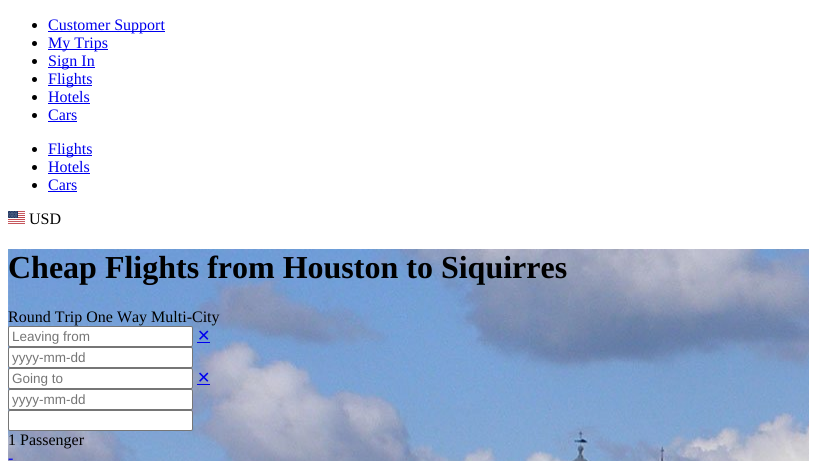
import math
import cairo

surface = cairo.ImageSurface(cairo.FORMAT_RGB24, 817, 461)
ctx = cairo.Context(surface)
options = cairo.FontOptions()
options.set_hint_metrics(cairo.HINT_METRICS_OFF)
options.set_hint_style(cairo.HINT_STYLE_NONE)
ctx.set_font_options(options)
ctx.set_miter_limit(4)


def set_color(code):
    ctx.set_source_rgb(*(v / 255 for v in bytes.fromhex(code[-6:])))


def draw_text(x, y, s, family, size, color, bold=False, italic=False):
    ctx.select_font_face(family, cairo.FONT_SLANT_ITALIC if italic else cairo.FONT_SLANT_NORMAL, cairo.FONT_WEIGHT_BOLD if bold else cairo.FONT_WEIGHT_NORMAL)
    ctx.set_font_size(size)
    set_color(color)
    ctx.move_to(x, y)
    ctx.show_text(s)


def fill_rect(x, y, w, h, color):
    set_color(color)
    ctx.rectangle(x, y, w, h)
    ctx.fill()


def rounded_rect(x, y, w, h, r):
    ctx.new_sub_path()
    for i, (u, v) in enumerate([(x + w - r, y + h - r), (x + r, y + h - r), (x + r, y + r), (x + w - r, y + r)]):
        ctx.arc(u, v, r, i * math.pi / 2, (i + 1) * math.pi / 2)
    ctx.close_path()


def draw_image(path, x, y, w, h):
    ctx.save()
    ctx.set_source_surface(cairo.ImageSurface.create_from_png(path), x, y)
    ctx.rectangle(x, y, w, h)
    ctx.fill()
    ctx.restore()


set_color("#ffffff")
ctx.paint()
set_color("#000000")
ctx.arc(34.5, 25.5, 2.5, 0, 2 * math.pi)
ctx.fill()
fill_rect(48, 31, 117, 1, "#0000ee")
draw_text(48, 30, "Customer Support", "Liberation Serif", 16, "#0000ee")
set_color("#000000")
ctx.new_path()
ctx.arc(34.5, 43.5, 2.5, 0, 2 * math.pi)
ctx.fill()
fill_rect(48, 49, 60, 1, "#0000ee")
draw_text(48, 48, "My Trips", "Liberation Serif", 16, "#0000ee")
set_color("#000000")
ctx.new_path()
ctx.arc(34.5, 61.5, 2.5, 0, 2 * math.pi)
ctx.fill()
fill_rect(48, 67, 47, 1, "#0000ee")
draw_text(48, 66, "Sign In", "Liberation Serif", 16, "#0000ee")
set_color("#000000")
ctx.new_path()
ctx.arc(34.5, 79.5, 2.5, 0, 2 * math.pi)
ctx.fill()
fill_rect(48, 85, 44, 1, "#0000ee")
draw_text(48, 84, "Flights", "Liberation Serif", 16, "#0000ee")
set_color("#000000")
ctx.new_path()
ctx.arc(34.5, 97.5, 2.5, 0, 2 * math.pi)
ctx.fill()
draw_text(48, 102, "Hotels", "Liberation Serif", 16, "#0000ee")
fill_rect(48, 103, 42, 1, "#0000ee")
set_color("#000000")
ctx.new_path()
ctx.arc(34.5, 115.5, 2.5, 0, 2 * math.pi)
ctx.fill()
draw_text(48, 120, "Cars", "Liberation Serif", 16, "#0000ee")
fill_rect(48, 121, 29, 1, "#0000ee")
set_color("#000000")
ctx.new_path()
ctx.arc(34.5, 149.5, 2.5, 0, 2 * math.pi)
ctx.fill()
fill_rect(48, 155, 44, 1, "#0000ee")
draw_text(48, 154, "Flights", "Liberation Serif", 16, "#0000ee")
set_color("#000000")
ctx.new_path()
ctx.arc(34.5, 167.5, 2.5, 0, 2 * math.pi)
ctx.fill()
draw_text(48, 172, "Hotels", "Liberation Serif", 16, "#0000ee")
fill_rect(48, 173, 42, 1, "#0000ee")
set_color("#000000")
ctx.new_path()
ctx.arc(34.5, 185.5, 2.5, 0, 2 * math.pi)
ctx.fill()
draw_text(48, 190, "Cars", "Liberation Serif", 16, "#0000ee")
fill_rect(48, 191, 29, 1, "#0000ee")
draw_image("assets/img1.png", 8, 211, 17, 13)
draw_text(29, 224, "USD", "Liberation Serif", 16, "#000000")
draw_image("assets/img2.png", 8, 249, 801, 212)
draw_text(8, 278, "Cheap Flights from Houston to Siquirres", "Liberation Serif", 32, "#000000", bold=True)
draw_text(8, 322, "Round Trip One Way Multi-City", "Liberation Serif", 16, "#000000")
set_color("#ffffff")
rounded_rect(8.5, 326.5, 184, 20, 1.5)
ctx.fill_preserve()
set_color("#767676")
ctx.set_line_width(1)
ctx.stroke()
draw_text(12, 341, "Leaving from", "Liberation Sans", 13.5, "#757575")
draw_text(197, 341, "✕", "DejaVu Sans", 16, "#0000ee")
fill_rect(197, 342, 13, 1, "#0000ee")
set_color("#ffffff")
rounded_rect(8.5, 347.5, 184, 20, 1.5)
ctx.fill_preserve()
set_color("#767676")
ctx.stroke()
draw_text(12, 362, "yyyy-mm-dd", "Liberation Sans", 13.5, "#757575")
set_color("#ffffff")
rounded_rect(8.5, 368.5, 184, 20, 1.5)
ctx.fill_preserve()
set_color("#767676")
ctx.stroke()
draw_text(12, 383, "Going to", "Liberation Sans", 13.5, "#757575")
draw_text(197, 383, "✕", "DejaVu Sans", 16, "#0000ee")
fill_rect(197, 384, 13, 1, "#0000ee")
set_color("#ffffff")
rounded_rect(8.5, 389.5, 184, 20, 1.5)
ctx.fill_preserve()
set_color("#767676")
ctx.stroke()
draw_text(12, 404, "yyyy-mm-dd", "Liberation Sans", 13.5, "#757575")
set_color("#ffffff")
rounded_rect(8.5, 410.5, 184, 20, 1.5)
ctx.fill_preserve()
set_color("#767676")
ctx.stroke()
draw_text(8, 445, "1 Passenger", "Liberation Serif", 16, "#000000")
draw_text(8, 463, "-", "Liberation Serif", 16, "#0000ee")
surface.write_to_png("output.png")
